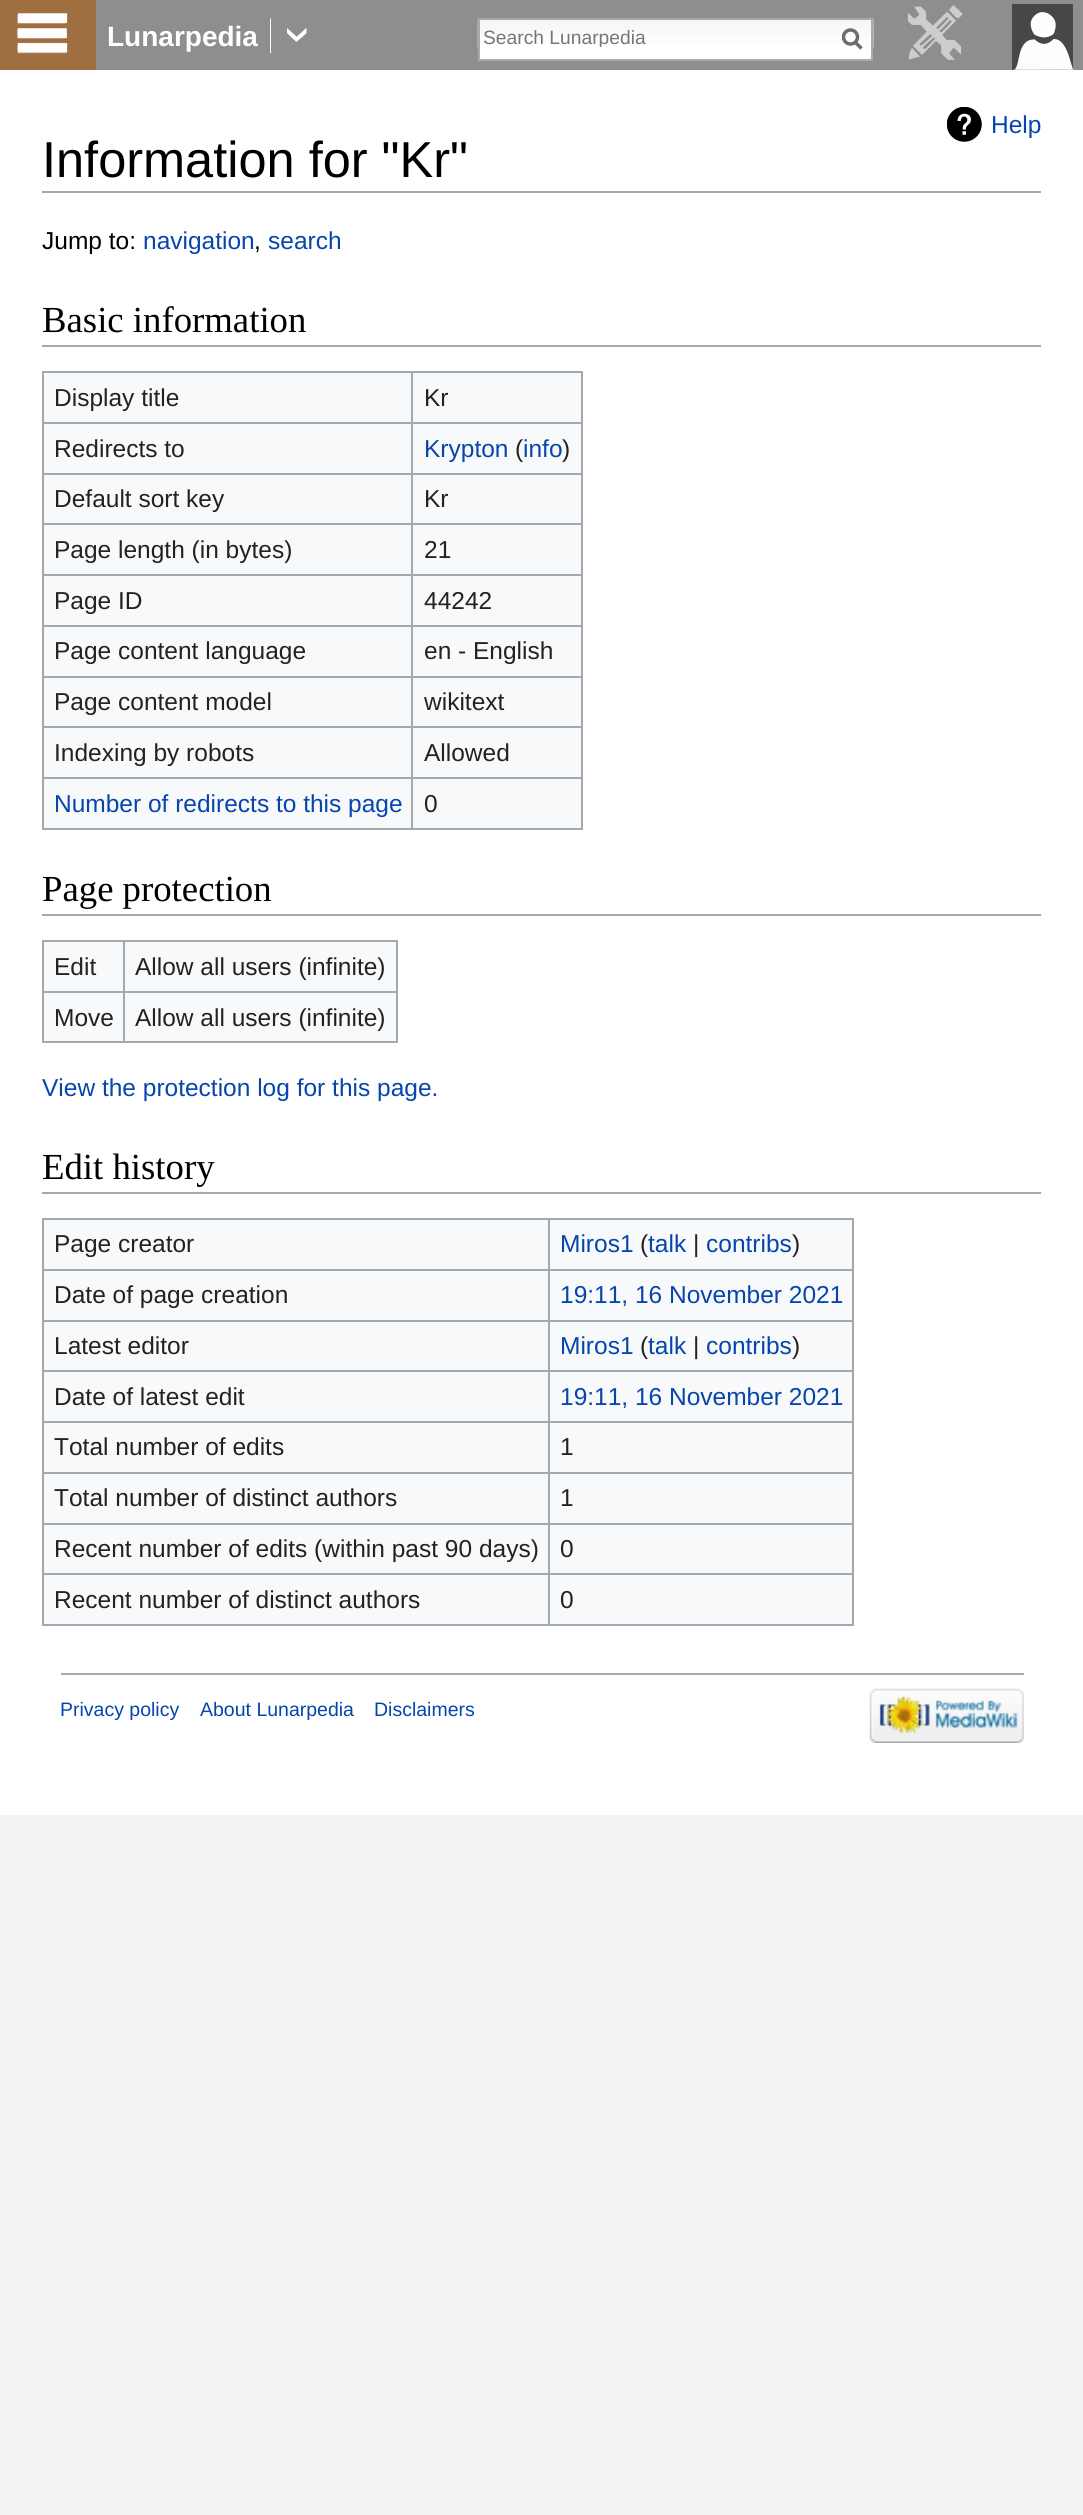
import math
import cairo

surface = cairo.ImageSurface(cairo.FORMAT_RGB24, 1083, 2515)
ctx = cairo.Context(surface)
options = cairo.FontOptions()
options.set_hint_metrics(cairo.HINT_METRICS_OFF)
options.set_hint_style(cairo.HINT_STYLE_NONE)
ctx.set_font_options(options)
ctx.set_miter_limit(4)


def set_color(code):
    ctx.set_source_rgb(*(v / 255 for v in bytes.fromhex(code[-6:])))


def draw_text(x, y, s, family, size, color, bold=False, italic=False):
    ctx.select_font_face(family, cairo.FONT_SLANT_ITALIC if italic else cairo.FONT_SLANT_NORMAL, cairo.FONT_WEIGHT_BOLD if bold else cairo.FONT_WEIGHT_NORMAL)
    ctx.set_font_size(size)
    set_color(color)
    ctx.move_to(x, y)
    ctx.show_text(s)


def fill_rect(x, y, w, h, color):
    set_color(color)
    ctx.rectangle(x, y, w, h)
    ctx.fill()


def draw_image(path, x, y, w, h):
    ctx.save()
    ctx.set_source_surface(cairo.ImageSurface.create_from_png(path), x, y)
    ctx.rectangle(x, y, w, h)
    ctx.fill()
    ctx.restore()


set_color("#f3f3f3")
ctx.paint()
fill_rect(96, 0, 987, 70, "#8e8e8e")
fill_rect(0, 0, 96, 70, "#9f6f40")
draw_image("assets/img1.png", 17, 13, 51, 41)
draw_text(107, 46, "Lunarpedia", "Liberation Sans", 28, "#ffffff", bold=True)
ctx.save()
ctx.rectangle(270, 0, 2, 61)
ctx.clip()
set_color("#fefefe")
ctx.new_path()
ctx.move_to(269.5, 36)
ctx.line_to(269, 19)
ctx.curve_to(269.5, 18, 271, 17.5, 271, 20)
ctx.line_to(271, 53)
ctx.line_to(270, 53.5)
ctx.curve_to(269.5, 53.5, 269.5, 53, 269, 53)
ctx.line_to(269.5, 51)
ctx.close_path()
ctx.fill()
ctx.restore()
draw_image("assets/img2.png", 287, 28, 20, 14)
fill_rect(480, 47, 391, 12, "#ffffff")
draw_image("assets/img3.png", 477, 19, 397, 29)
ctx.rectangle(479, 19, 393, 41)
set_color("#aaaaaa")
ctx.stroke()
ctx.save()
ctx.rectangle(483, 26, 327, 21)
ctx.clip()
draw_text(483, 44, "Search Lunarpedia", "Liberation Sans", 19.25, "#72777d")
ctx.restore()
ctx.new_path()
ctx.move_to(861.5, 48.5)
ctx.line_to(854.5, 41.5)
set_color("#6c6c6c")
ctx.set_line_width(3.5)
ctx.stroke()
ctx.save()
ctx.rectangle(842, 28, 21, 23)
ctx.clip()
ctx.arc(850.5, 37, 7, 0, 2 * math.pi)
ctx.stroke()
ctx.restore()
draw_image("assets/img4.png", 907, 5, 56, 55)
draw_image("assets/img5.png", 1012, 4, 61, 66)
fill_rect(0, 70, 1083, 1745, "#ffffff")
draw_image("assets/img6.png", 947, 107, 35, 35)
draw_text(991, 133, "Help", "Liberation Sans", 24.5, "#0645ad")
fill_rect(42, 191, 999, 2, "#a2a9b1")
draw_text(42, 177, "Information for \"Kr\"", "Liberation Sans", 50.5, "#000000")
draw_text(42, 249, "Jump to:", "Liberation Sans", 24.5, "#000000")
draw_text(143, 249, "navigation", "Liberation Sans", 24.5, "#0645ad")
draw_text(254, 249, ",", "Liberation Sans", 24.5, "#000000")
draw_text(268, 249, "search", "Liberation Sans", 24.5, "#0645ad")
fill_rect(42, 345, 999, 2, "#a2a9b1")
draw_text(42, 332, "Basic information", "Liberation Serif", 36.75, "#000000")
fill_rect(44, 373, 537, 455, "#f8f9fa")
fill_rect(42, 371, 541, 2, "#a2a9b1")
fill_rect(581, 371, 2, 459, "#a2a9b1")
fill_rect(42, 828, 541, 2, "#a2a9b1")
fill_rect(42, 371, 2, 459, "#a2a9b1")
draw_text(54, 406, "Display title", "Liberation Sans", 24.5, "#222222")
fill_rect(411, 422, 172, 2, "#a2a9b1")
fill_rect(411, 473, 172, 2, "#a2a9b1")
fill_rect(411, 523, 172, 2, "#a2a9b1")
fill_rect(411, 574, 172, 2, "#a2a9b1")
fill_rect(411, 625, 172, 2, "#a2a9b1")
fill_rect(411, 676, 172, 2, "#a2a9b1")
fill_rect(411, 726, 172, 2, "#a2a9b1")
fill_rect(411, 777, 172, 2, "#a2a9b1")
fill_rect(411, 777, 2, 53, "#a2a9b1")
fill_rect(42, 777, 371, 2, "#a2a9b1")
fill_rect(411, 726, 2, 53, "#a2a9b1")
fill_rect(42, 726, 371, 2, "#a2a9b1")
fill_rect(411, 676, 2, 52, "#a2a9b1")
fill_rect(42, 676, 371, 2, "#a2a9b1")
fill_rect(411, 625, 2, 52, "#a2a9b1")
fill_rect(42, 625, 371, 2, "#a2a9b1")
fill_rect(411, 574, 2, 53, "#a2a9b1")
fill_rect(42, 574, 371, 2, "#a2a9b1")
fill_rect(411, 523, 2, 53, "#a2a9b1")
fill_rect(42, 523, 371, 2, "#a2a9b1")
fill_rect(411, 473, 2, 52, "#a2a9b1")
fill_rect(42, 473, 371, 2, "#a2a9b1")
fill_rect(411, 422, 2, 52, "#a2a9b1")
fill_rect(42, 422, 371, 2, "#a2a9b1")
fill_rect(411, 371, 2, 53, "#a2a9b1")
draw_text(424, 406, "Kr", "Liberation Sans", 24.5, "#222222")
draw_text(54, 457, "Redirects to", "Liberation Sans", 24.5, "#222222")
draw_text(424, 457, "Krypton", "Liberation Sans", 24.5, "#0645ad")
draw_text(515, 457, "(", "Liberation Sans", 24.5, "#222222")
draw_text(523, 457, "info", "Liberation Sans", 24.5, "#0645ad")
draw_text(562, 457, ")", "Liberation Sans", 24.5, "#222222")
draw_text(54, 507, "Default sort key", "Liberation Sans", 24.5, "#222222")
draw_text(424, 507, "Kr", "Liberation Sans", 24.5, "#222222")
draw_text(54, 558, "Page length (in bytes)", "Liberation Sans", 24.5, "#222222")
draw_text(424, 558, "21", "Liberation Sans", 24.5, "#222222")
draw_text(54, 609, "Page ID", "Liberation Sans", 24.5, "#222222")
draw_text(424, 609, "44242", "Liberation Sans", 24.5, "#222222")
draw_text(54, 659, "Page content language", "Liberation Sans", 24.5, "#222222")
draw_text(424, 659, "en - English", "Liberation Sans", 24.5, "#222222")
draw_text(54, 710, "Page content model", "Liberation Sans", 24.5, "#222222")
draw_text(424, 710, "wikitext", "Liberation Sans", 24.5, "#222222")
draw_text(54, 761, "Indexing by robots", "Liberation Sans", 24.5, "#222222")
draw_text(424, 761, "Allowed", "Liberation Sans", 24.5, "#222222")
draw_text(54, 812, "Number of redirects to this page", "Liberation Sans", 24.5, "#0645ad")
draw_text(424, 812, "0", "Liberation Sans", 24.5, "#222222")
fill_rect(42, 914, 999, 2, "#a2a9b1")
draw_text(42, 901, "Page protection", "Liberation Serif", 36.75, "#000000")
fill_rect(44, 942, 352, 99, "#f8f9fa")
fill_rect(42, 940, 355, 2, "#a2a9b1")
fill_rect(396, 940, 2, 103, "#a2a9b1")
fill_rect(42, 1041, 355, 2, "#a2a9b1")
fill_rect(42, 940, 2, 103, "#a2a9b1")
draw_text(54, 975, "Edit", "Liberation Sans", 24.5, "#222222")
fill_rect(123, 991, 274, 2, "#a2a9b1")
fill_rect(123, 991, 2, 52, "#a2a9b1")
fill_rect(42, 991, 82, 2, "#a2a9b1")
fill_rect(123, 940, 2, 52, "#a2a9b1")
draw_text(135, 975, "Allow all users (infinite)", "Liberation Sans", 24.5, "#222222")
draw_text(54, 1026, "Move", "Liberation Sans", 24.5, "#222222")
draw_text(135, 1026, "Allow all users (infinite)", "Liberation Sans", 24.5, "#222222")
draw_text(42, 1096, "View the protection log for this page.", "Liberation Sans", 24.5, "#0645ad")
fill_rect(42, 1192, 999, 2, "#a2a9b1")
draw_text(42, 1179, "Edit history", "Liberation Serif", 36.75, "#000000")
fill_rect(44, 1220, 808, 404, "#f8f9fa")
fill_rect(42, 1218, 812, 2, "#a2a9b1")
fill_rect(852, 1218, 2, 408, "#a2a9b1")
fill_rect(42, 1624, 812, 2, "#a2a9b1")
fill_rect(42, 1218, 2, 408, "#a2a9b1")
draw_text(54, 1252, "Page creator", "Liberation Sans", 24.5, "#222222")
fill_rect(548, 1269, 306, 2, "#a2a9b1")
fill_rect(548, 1320, 306, 2, "#a2a9b1")
fill_rect(548, 1370, 306, 2, "#a2a9b1")
fill_rect(548, 1421, 306, 2, "#a2a9b1")
fill_rect(548, 1472, 306, 2, "#a2a9b1")
fill_rect(548, 1523, 306, 2, "#a2a9b1")
fill_rect(548, 1573, 306, 2, "#a2a9b1")
fill_rect(548, 1573, 2, 53, "#a2a9b1")
fill_rect(42, 1573, 508, 2, "#a2a9b1")
fill_rect(548, 1523, 2, 52, "#a2a9b1")
fill_rect(42, 1523, 508, 2, "#a2a9b1")
fill_rect(548, 1472, 2, 52, "#a2a9b1")
fill_rect(42, 1472, 508, 2, "#a2a9b1")
fill_rect(548, 1421, 2, 53, "#a2a9b1")
fill_rect(42, 1421, 508, 2, "#a2a9b1")
fill_rect(548, 1370, 2, 53, "#a2a9b1")
fill_rect(42, 1370, 508, 2, "#a2a9b1")
fill_rect(548, 1320, 2, 52, "#a2a9b1")
fill_rect(42, 1320, 508, 2, "#a2a9b1")
fill_rect(548, 1269, 2, 52, "#a2a9b1")
fill_rect(42, 1269, 508, 2, "#a2a9b1")
fill_rect(548, 1218, 2, 53, "#a2a9b1")
draw_text(560, 1252, "Miros1", "Liberation Sans", 24.5, "#0645ad")
draw_text(640, 1252, "(", "Liberation Sans", 24.5, "#222222")
draw_text(648, 1252, "talk", "Liberation Sans", 24.5, "#0645ad")
draw_text(693, 1252, "|", "Liberation Sans", 24.5, "#222222")
draw_text(706, 1252, "contribs", "Liberation Sans", 24.5, "#0645ad")
draw_text(792, 1252, ")", "Liberation Sans", 24.5, "#222222")
draw_text(54, 1303, "Date of page creation", "Liberation Sans", 24.5, "#222222")
draw_text(560, 1303, "19:11, 16 November 2021", "Liberation Sans", 24.5, "#0645ad")
draw_text(54, 1354, "Latest editor", "Liberation Sans", 24.5, "#222222")
draw_text(560, 1354, "Miros1", "Liberation Sans", 24.5, "#0645ad")
draw_text(640, 1354, "(", "Liberation Sans", 24.5, "#222222")
draw_text(648, 1354, "talk", "Liberation Sans", 24.5, "#0645ad")
draw_text(693, 1354, "|", "Liberation Sans", 24.5, "#222222")
draw_text(706, 1354, "contribs", "Liberation Sans", 24.5, "#0645ad")
draw_text(792, 1354, ")", "Liberation Sans", 24.5, "#222222")
draw_text(54, 1405, "Date of latest edit", "Liberation Sans", 24.5, "#222222")
draw_text(560, 1405, "19:11, 16 November 2021", "Liberation Sans", 24.5, "#0645ad")
draw_text(54, 1455, "Total number of edits", "Liberation Sans", 24.5, "#222222")
draw_text(560, 1455, "1", "Liberation Sans", 24.5, "#222222")
draw_text(54, 1506, "Total number of distinct authors", "Liberation Sans", 24.5, "#222222")
draw_text(560, 1506, "1", "Liberation Sans", 24.5, "#222222")
draw_text(54, 1557, "Recent number of edits (within past 90 days)", "Liberation Sans", 24.5, "#222222")
draw_text(560, 1557, "0", "Liberation Sans", 24.5, "#222222")
draw_text(54, 1608, "Recent number of distinct authors", "Liberation Sans", 24.5, "#222222")
draw_text(560, 1608, "0", "Liberation Sans", 24.5, "#222222")
fill_rect(61, 1673, 963, 2, "#a2a9b1")
draw_text(60, 1716, "Privacy policy", "Liberation Sans", 19.5, "#0645ad")
draw_text(200, 1716, "About Lunarpedia", "Liberation Sans", 19.5, "#0645ad")
draw_text(374, 1716, "Disclaimers", "Liberation Sans", 19.5, "#0645ad")
draw_image("assets/img7.png", 869, 1688, 155, 55)
surface.write_to_png("output.png")
